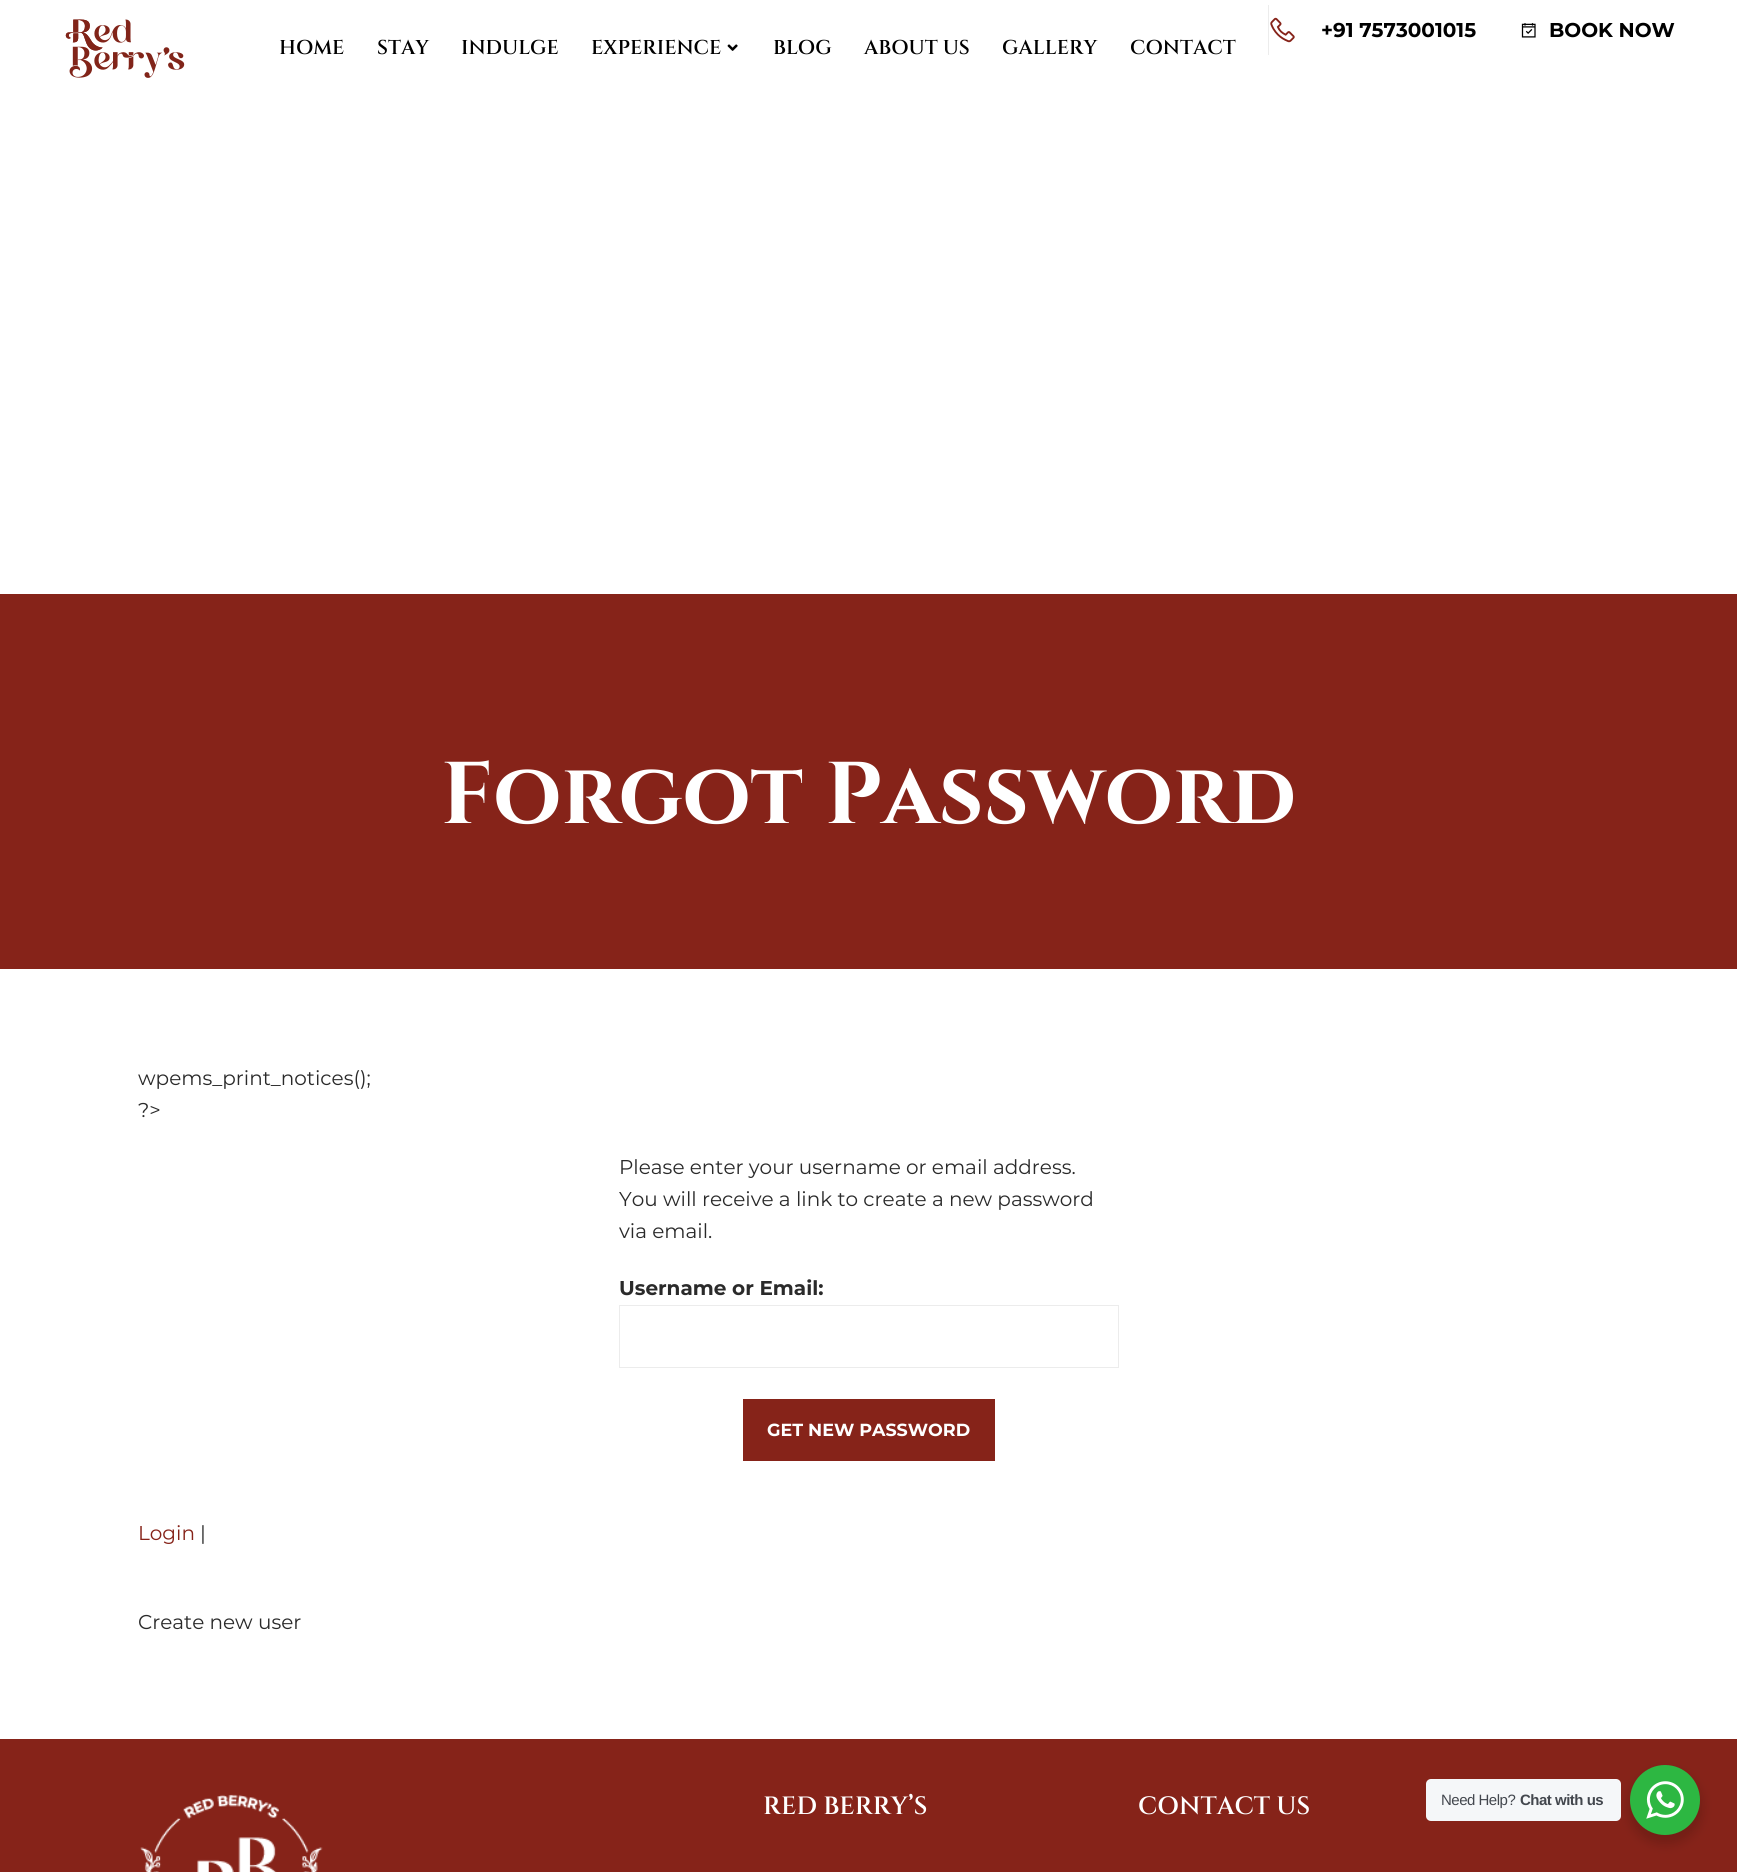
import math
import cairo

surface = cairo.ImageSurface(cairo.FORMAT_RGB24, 1737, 1872)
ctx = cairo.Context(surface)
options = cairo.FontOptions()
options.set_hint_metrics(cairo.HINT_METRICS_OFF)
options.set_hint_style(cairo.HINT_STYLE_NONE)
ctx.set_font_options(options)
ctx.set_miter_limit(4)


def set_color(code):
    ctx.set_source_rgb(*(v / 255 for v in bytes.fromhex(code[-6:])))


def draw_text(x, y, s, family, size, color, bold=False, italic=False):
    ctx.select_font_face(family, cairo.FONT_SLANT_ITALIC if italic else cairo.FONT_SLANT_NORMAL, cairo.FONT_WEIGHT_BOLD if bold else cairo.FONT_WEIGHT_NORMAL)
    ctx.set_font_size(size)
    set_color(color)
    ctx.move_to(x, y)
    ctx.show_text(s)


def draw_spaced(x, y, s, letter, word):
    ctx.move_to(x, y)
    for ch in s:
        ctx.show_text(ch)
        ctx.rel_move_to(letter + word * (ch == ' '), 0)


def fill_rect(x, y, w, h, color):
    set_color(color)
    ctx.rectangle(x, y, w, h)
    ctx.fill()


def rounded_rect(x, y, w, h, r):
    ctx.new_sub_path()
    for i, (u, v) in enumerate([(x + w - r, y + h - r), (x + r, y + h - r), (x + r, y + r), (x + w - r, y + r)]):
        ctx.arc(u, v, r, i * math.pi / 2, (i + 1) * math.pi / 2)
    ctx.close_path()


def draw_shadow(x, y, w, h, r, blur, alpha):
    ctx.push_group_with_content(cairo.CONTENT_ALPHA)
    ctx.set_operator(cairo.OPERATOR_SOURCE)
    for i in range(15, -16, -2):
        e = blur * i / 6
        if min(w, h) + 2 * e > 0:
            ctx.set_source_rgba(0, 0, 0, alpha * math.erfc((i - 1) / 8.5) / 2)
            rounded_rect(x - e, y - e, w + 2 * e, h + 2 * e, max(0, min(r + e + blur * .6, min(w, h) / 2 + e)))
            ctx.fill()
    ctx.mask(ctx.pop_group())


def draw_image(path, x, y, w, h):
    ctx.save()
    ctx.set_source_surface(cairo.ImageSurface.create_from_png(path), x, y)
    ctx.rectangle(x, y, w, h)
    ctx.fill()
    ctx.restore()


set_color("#ffffff")
ctx.paint()
draw_image("assets/img1.png", 65, 19, 120, 59)
fill_rect(1268, 5, 1, 50, "#ececec")
draw_image("assets/img2.png", 1270, 17, 25, 26)
draw_text(1321, 37, "+91 7573001015", "Montserrat", 20, "#000000", bold=True)
draw_image("assets/img3.png", 1521, 23, 15, 15)
draw_text(1549, 37, "BOOK NOW", "Montserrat", 20, "#000000", bold=True)
draw_text(279, 54, "HOME", "Cinzel SemiBold", 20, "#000000")
draw_text(377, 54, "STAY", "Cinzel SemiBold", 20, "#000000")
draw_text(461, 54, "INDULGE", "Cinzel SemiBold", 20, "#000000")
draw_text(591, 54, "EXPERIENCE", "Cinzel SemiBold", 20, "#000000")
draw_image("assets/img4.png", 727, 44, 11, 7)
draw_text(773, 54, "BLOG", "Cinzel SemiBold", 20, "#000000")
draw_text(864, 54, "ABOUT US", "Cinzel SemiBold", 20, "#000000")
draw_text(1002, 54, "GALLERY", "Cinzel SemiBold", 20, "#000000")
draw_text(1130, 54, "CONTACT", "Cinzel SemiBold", 20, "#000000")
fill_rect(0, 594, 1737, 375, "#862319")
draw_text(441, 823, "Forgot Password", "Cinzel", 87.5, "#ffffff", bold=True)
draw_text(138, 1085, "wpems_print_notices();", "Montserrat", 20, "#2a2a2a")
draw_text(138, 1117, "?>", "Montserrat", 20, "#2a2a2a")
draw_text(619, 1174, "Please enter your username or email address.", "Montserrat", 20, "#2a2a2a")
draw_text(619, 1206, "You will receive a link to create a new password", "Montserrat", 20, "#2a2a2a")
draw_text(619, 1238, "via email.", "Montserrat", 20, "#2a2a2a")
draw_text(619, 1295, "Username or Email:", "Montserrat", 20, "#2a2a2a", bold=True)
ctx.rectangle(619.5, 1305.5, 499, 62)
set_color("#ececec")
ctx.set_line_width(1)
ctx.stroke()
fill_rect(743, 1399, 252, 62, "#862319")
draw_text(767, 1436, "GET NEW PASSWORD", "Montserrat", 17.5, "#ffffff", bold=True)
draw_text(138, 1540, "Login", "Montserrat", 20, "#862319")
draw_text(200, 1540, "|", "Montserrat", 20, "#2a2a2a")
draw_text(138, 1629, "Create new user", "Montserrat", 20, "#2a2a2a")
fill_rect(0, 1739, 1737, 133, "#862319")
draw_image("assets/img5.png", 140, 1794, 183, 78)
draw_text(763, 1814, "RED BERRY’S", "Cinzel SemiBold", 25, "#ffffff")
draw_text(1138, 1814, "CONTACT US", "Cinzel SemiBold", 25, "#ffffff")
set_color("#000000")
draw_shadow(1628, 1770, 75, 75, 37.5, 5, 0.14)
set_color("#f5f7f9")
rounded_rect(1426, 1779, 195, 42, 5)
ctx.fill()
ctx.select_font_face("Liberation Sans")
ctx.set_font_size(15)
set_color("#43474e")
draw_spaced(1441, 1805, "Need Help?", -0.5, 0)
ctx.select_font_face("Liberation Sans", cairo.FONT_SLANT_NORMAL, cairo.FONT_WEIGHT_BOLD)
draw_spaced(1520, 1805, "Chat with us", -0.5, 0)
set_color("#2db742")
ctx.new_path()
ctx.arc(1665, 1800, 35, 0, 2 * math.pi)
ctx.fill()
draw_image("assets/img6.png", 1646, 1781, 38, 38)
surface.write_to_png("output.png")
